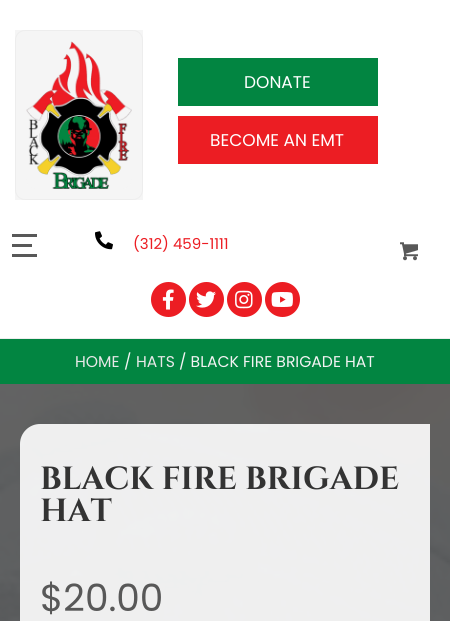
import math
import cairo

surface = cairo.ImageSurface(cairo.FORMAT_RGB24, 450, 621)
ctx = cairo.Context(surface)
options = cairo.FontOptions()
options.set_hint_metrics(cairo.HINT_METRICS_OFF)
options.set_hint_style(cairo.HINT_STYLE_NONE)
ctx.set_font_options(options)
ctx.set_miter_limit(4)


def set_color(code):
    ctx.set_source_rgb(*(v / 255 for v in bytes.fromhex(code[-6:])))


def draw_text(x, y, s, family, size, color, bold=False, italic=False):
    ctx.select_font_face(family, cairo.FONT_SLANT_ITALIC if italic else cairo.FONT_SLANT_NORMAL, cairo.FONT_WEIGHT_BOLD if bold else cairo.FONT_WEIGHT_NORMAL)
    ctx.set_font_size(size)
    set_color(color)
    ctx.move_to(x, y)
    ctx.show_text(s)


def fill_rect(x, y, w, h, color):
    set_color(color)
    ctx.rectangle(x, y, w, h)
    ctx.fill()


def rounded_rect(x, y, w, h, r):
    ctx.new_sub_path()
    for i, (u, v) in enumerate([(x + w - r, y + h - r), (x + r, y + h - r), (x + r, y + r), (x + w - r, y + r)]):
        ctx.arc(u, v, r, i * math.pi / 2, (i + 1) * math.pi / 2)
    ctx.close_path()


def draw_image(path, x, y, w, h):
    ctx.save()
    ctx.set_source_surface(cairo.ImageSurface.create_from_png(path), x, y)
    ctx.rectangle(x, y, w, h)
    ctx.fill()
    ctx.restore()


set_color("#ffffff")
ctx.paint()
fill_rect(0, 338, 450, 1, "#ededed")
fill_rect(15, 30, 128, 170, "#f5f5f5")
rounded_rect(15.5, 30.5, 127, 169, 9.5)
set_color("#ededed")
ctx.set_line_width(1)
ctx.stroke()
draw_image("assets/img1.png", 26, 41, 106, 148)
fill_rect(178, 58, 200, 48, "#028541")
draw_text(244, 88, "DONATE", "Poppins", 17, "#ffffff")
fill_rect(178, 116, 200, 48, "#ec1d23")
draw_text(210, 146, "BECOME AN EMT", "Poppins", 17, "#ffffff")
fill_rect(12, 234, 25, 3, "#585858")
fill_rect(12, 244, 20, 3, "#585858")
fill_rect(12, 254, 25, 3, "#585858")
draw_image("assets/img2.png", 95, 231, 18, 19)
draw_text(133, 249, "(312) 459-1111", "Poppins", 15, "#ec1d23")
draw_image("assets/img3.png", 400, 242, 18, 19)
ctx.arc(168.5, 299.5, 17.5, 0, 2 * math.pi)
ctx.fill()
draw_image("assets/img4.png", 162, 289, 12, 21)
ctx.arc(206.5, 299.5, 17.5, 0, 2 * math.pi)
ctx.fill()
draw_image("assets/img5.png", 196, 291, 20, 17)
ctx.arc(244.5, 299.5, 17.5, 0, 2 * math.pi)
ctx.fill()
draw_image("assets/img6.png", 235, 290, 18, 19)
ctx.arc(282.5, 299.5, 17.5, 0, 2 * math.pi)
ctx.fill()
draw_image("assets/img7.png", 271, 292, 22, 15)
fill_rect(0, 339, 450, 45, "#028541")
draw_text(75, 367, "HOME", "Poppins", 15.6, "#e8e8e8")
draw_text(124, 367, "/", "Poppins", 15.6, "#f3f3f3")
draw_text(136, 367, "HATS", "Poppins", 15.6, "#e8e8e8")
draw_text(179, 367, "/ BLACK FIRE BRIGADE HAT", "Poppins", 15.6, "#f3f3f3")
draw_image("assets/img8.png", 0, 384, 450, 237)
ctx.set_source_rgba(1, 1, 1, 0.9)
ctx.new_path()
ctx.move_to(40, 424)
ctx.line_to(430, 424)
ctx.line_to(430, 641)
ctx.line_to(40, 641)
ctx.curve_to(29, 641, 20, 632, 20, 621)
ctx.line_to(20, 444)
ctx.curve_to(20, 433, 29, 424, 40, 424)
ctx.close_path()
ctx.fill()
draw_text(40, 489, "BLACK FIRE BRIGADE", "Cinzel", 32, "#333333", bold=True)
draw_text(40, 521, "HAT", "Cinzel", 32, "#333333", bold=True)
draw_text(40, 611, "$20.00", "Poppins", 37.5, "#585858")
surface.write_to_png("output.png")
